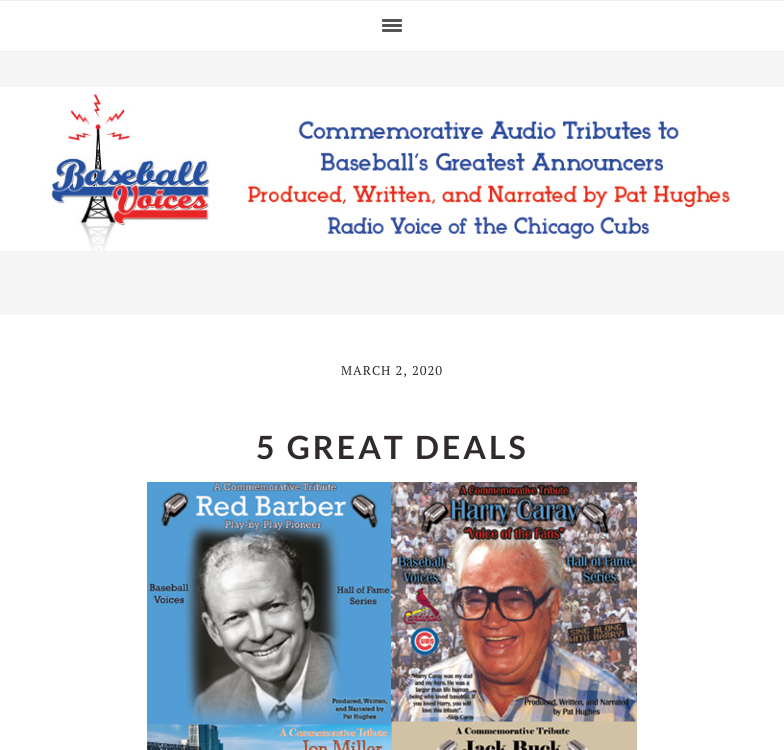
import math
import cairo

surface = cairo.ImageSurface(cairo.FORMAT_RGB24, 784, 750)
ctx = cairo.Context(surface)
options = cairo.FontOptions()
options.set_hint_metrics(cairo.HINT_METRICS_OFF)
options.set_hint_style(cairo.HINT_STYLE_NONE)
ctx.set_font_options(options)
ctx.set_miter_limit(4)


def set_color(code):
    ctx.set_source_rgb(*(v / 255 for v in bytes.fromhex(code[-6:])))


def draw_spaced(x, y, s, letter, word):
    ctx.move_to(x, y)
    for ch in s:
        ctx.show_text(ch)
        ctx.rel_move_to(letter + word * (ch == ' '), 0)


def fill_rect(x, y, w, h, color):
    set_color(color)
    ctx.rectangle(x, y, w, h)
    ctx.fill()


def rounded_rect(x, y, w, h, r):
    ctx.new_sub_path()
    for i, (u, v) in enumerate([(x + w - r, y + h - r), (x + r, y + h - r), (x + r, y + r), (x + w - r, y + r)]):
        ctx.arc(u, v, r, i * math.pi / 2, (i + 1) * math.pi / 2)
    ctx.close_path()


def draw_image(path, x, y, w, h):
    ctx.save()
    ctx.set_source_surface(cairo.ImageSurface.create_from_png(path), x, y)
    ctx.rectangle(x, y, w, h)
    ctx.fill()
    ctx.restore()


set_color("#ffffff")
ctx.paint()
fill_rect(0, 0, 784, 1, "#eeeeee")
fill_rect(0, 51, 784, 1, "#eeeeee")
set_color("#555555")
rounded_rect(382, 24, 20, 3, 1)
ctx.fill()
rounded_rect(382, 19, 20, 3, 1)
ctx.fill()
rounded_rect(382, 29, 20, 3, 1)
ctx.fill()
fill_rect(0, 52, 784, 263, "#f5f5f5")
draw_image("assets/img1.png", 0, 87, 784, 164)
ctx.select_font_face("PT Serif")
ctx.set_font_size(12.75)
set_color("#302a2c")
draw_spaced(341, 375, "MARCH 2, 2020", 1, 0)
ctx.select_font_face("Lato", cairo.FONT_SLANT_NORMAL, cairo.FONT_WEIGHT_BOLD)
ctx.set_font_size(32)
draw_spaced(256, 459, "5 GREAT DEALS", 3, 0)
draw_image("assets/img2.png", 147, 482, 490, 268)
surface.write_to_png("output.png")
